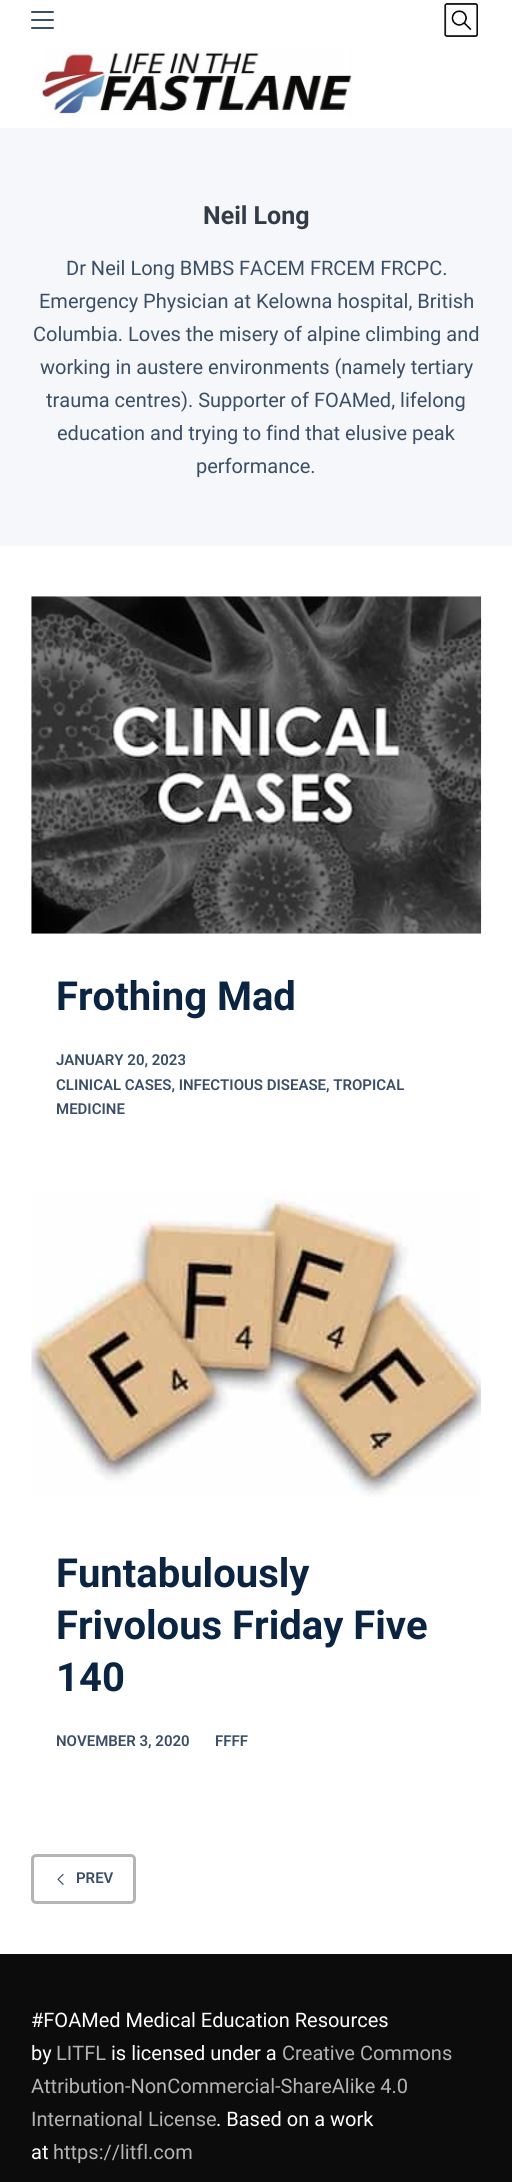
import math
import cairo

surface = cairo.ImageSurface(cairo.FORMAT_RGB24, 512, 2182)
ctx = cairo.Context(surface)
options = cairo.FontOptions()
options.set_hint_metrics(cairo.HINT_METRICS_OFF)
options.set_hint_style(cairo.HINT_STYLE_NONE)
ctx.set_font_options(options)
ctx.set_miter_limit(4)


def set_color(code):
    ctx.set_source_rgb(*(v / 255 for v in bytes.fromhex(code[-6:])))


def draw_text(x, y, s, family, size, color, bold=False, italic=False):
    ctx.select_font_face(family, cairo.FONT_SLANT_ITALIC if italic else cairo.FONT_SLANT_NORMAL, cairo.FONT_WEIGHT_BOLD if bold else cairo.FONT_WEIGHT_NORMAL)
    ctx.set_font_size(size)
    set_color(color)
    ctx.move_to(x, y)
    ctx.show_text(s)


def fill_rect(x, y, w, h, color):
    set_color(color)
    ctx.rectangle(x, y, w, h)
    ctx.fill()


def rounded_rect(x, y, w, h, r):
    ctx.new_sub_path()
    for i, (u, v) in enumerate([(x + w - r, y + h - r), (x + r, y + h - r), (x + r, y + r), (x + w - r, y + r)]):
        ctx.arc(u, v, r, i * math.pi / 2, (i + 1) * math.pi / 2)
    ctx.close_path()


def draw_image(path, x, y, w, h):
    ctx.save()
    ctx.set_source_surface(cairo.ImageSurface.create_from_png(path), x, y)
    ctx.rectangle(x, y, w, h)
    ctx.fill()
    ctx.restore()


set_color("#ffffff")
ctx.paint()
set_color("#3a4f67")
rounded_rect(31, 11, 23, 2, 1)
ctx.fill()
rounded_rect(31, 19, 23, 2, 1)
ctx.fill()
rounded_rect(31, 27, 23, 2, 1)
ctx.fill()
draw_image("assets/img1.png", 444, 3, 34, 34)
draw_image("assets/img2.png", 39, 48, 314, 70)
fill_rect(0, 128, 512, 418, "#f5f7fa")
draw_text(203, 224, "Neil Long", "Roboto", 25, "#323b46", bold=True)
draw_text(66, 275, "Dr Neil Long BMBS FACEM FRCEM FRCPC.", "Roboto", 20, "#3a4f67")
draw_text(39, 308, "Emergency Physician at Kelowna hospital, British", "Roboto", 20, "#3a4f67")
draw_text(33, 341, "Columbia. Loves the misery of alpine climbing and", "Roboto", 20, "#3a4f67")
draw_text(40, 374, "working in austere environments (namely tertiary", "Roboto", 20, "#3a4f67")
draw_text(46, 407, "trauma centres). Supporter of FOAMed, lifelong", "Roboto", 20, "#3a4f67")
draw_text(57, 440, "education and trying to find that elusive peak", "Roboto", 20, "#3a4f67")
draw_text(196, 473, "performance.", "Roboto", 20, "#3a4f67")
draw_image("assets/img3.png", 31, 596, 451, 338)
draw_text(56, 1010, "Frothing Mad", "Roboto", 40, "#0a2442", bold=True)
draw_text(56, 1065, "JANUARY 20, 2023", "Roboto SemiBold", 15, "#3a4f67")
draw_text(56, 1090, "CLINICAL CASES, INFECTIOUS DISEASE, TROPICAL", "Roboto SemiBold", 15, "#3a4f67")
draw_text(56, 1114, "MEDICINE", "Roboto SemiBold", 15, "#3a4f67")
draw_image("assets/img4.png", 31, 1193, 450, 304)
draw_text(56, 1587, "Funtabulously", "Roboto", 40, "#0a2442", bold=True)
draw_text(56, 1639, "Frivolous Friday Five", "Roboto", 40, "#0a2442", bold=True)
draw_text(56, 1691, "140", "Roboto", 40, "#0a2442", bold=True)
draw_text(56, 1746, "NOVEMBER 3, 2020", "Roboto SemiBold", 15, "#3a4f67")
draw_text(215, 1746, "FFFF", "Roboto SemiBold", 15, "#3a4f67")
rounded_rect(32.5, 1855.5, 102, 47, 3.5)
set_color("#b6b3b3")
ctx.set_line_width(3)
ctx.stroke()
draw_image("assets/img5.png", 57, 1874, 7, 11)
draw_text(76, 1883, "PREV", "Roboto SemiBold", 15, "#3a4f67")
fill_rect(0, 1954, 512, 228, "#0c0c0c")
draw_text(31, 2027, "#FOAMed Medical Education Resources", "Roboto", 20, "#ffffff")
draw_text(31, 2060, "by", "Roboto", 20, "#ffffff")
draw_text(56, 2060, "LITFL", "Roboto", 20, "#b6b3b3")
draw_text(111, 2060, "is licensed under a", "Roboto", 20, "#ffffff")
draw_text(282, 2060, "Creative Commons", "Roboto", 20, "#b6b3b3")
draw_text(31, 2093, "Attribution-NonCommercial-ShareAlike 4.0", "Roboto", 20, "#b6b3b3")
draw_text(31, 2126, "International License", "Roboto", 20, "#b6b3b3")
draw_text(216, 2126, ". Based on a work", "Roboto", 20, "#ffffff")
draw_text(31, 2159, "at", "Roboto", 20, "#ffffff")
draw_text(53, 2159, "https://litfl.com", "Roboto", 20, "#b6b3b3")
surface.write_to_png("output.png")
